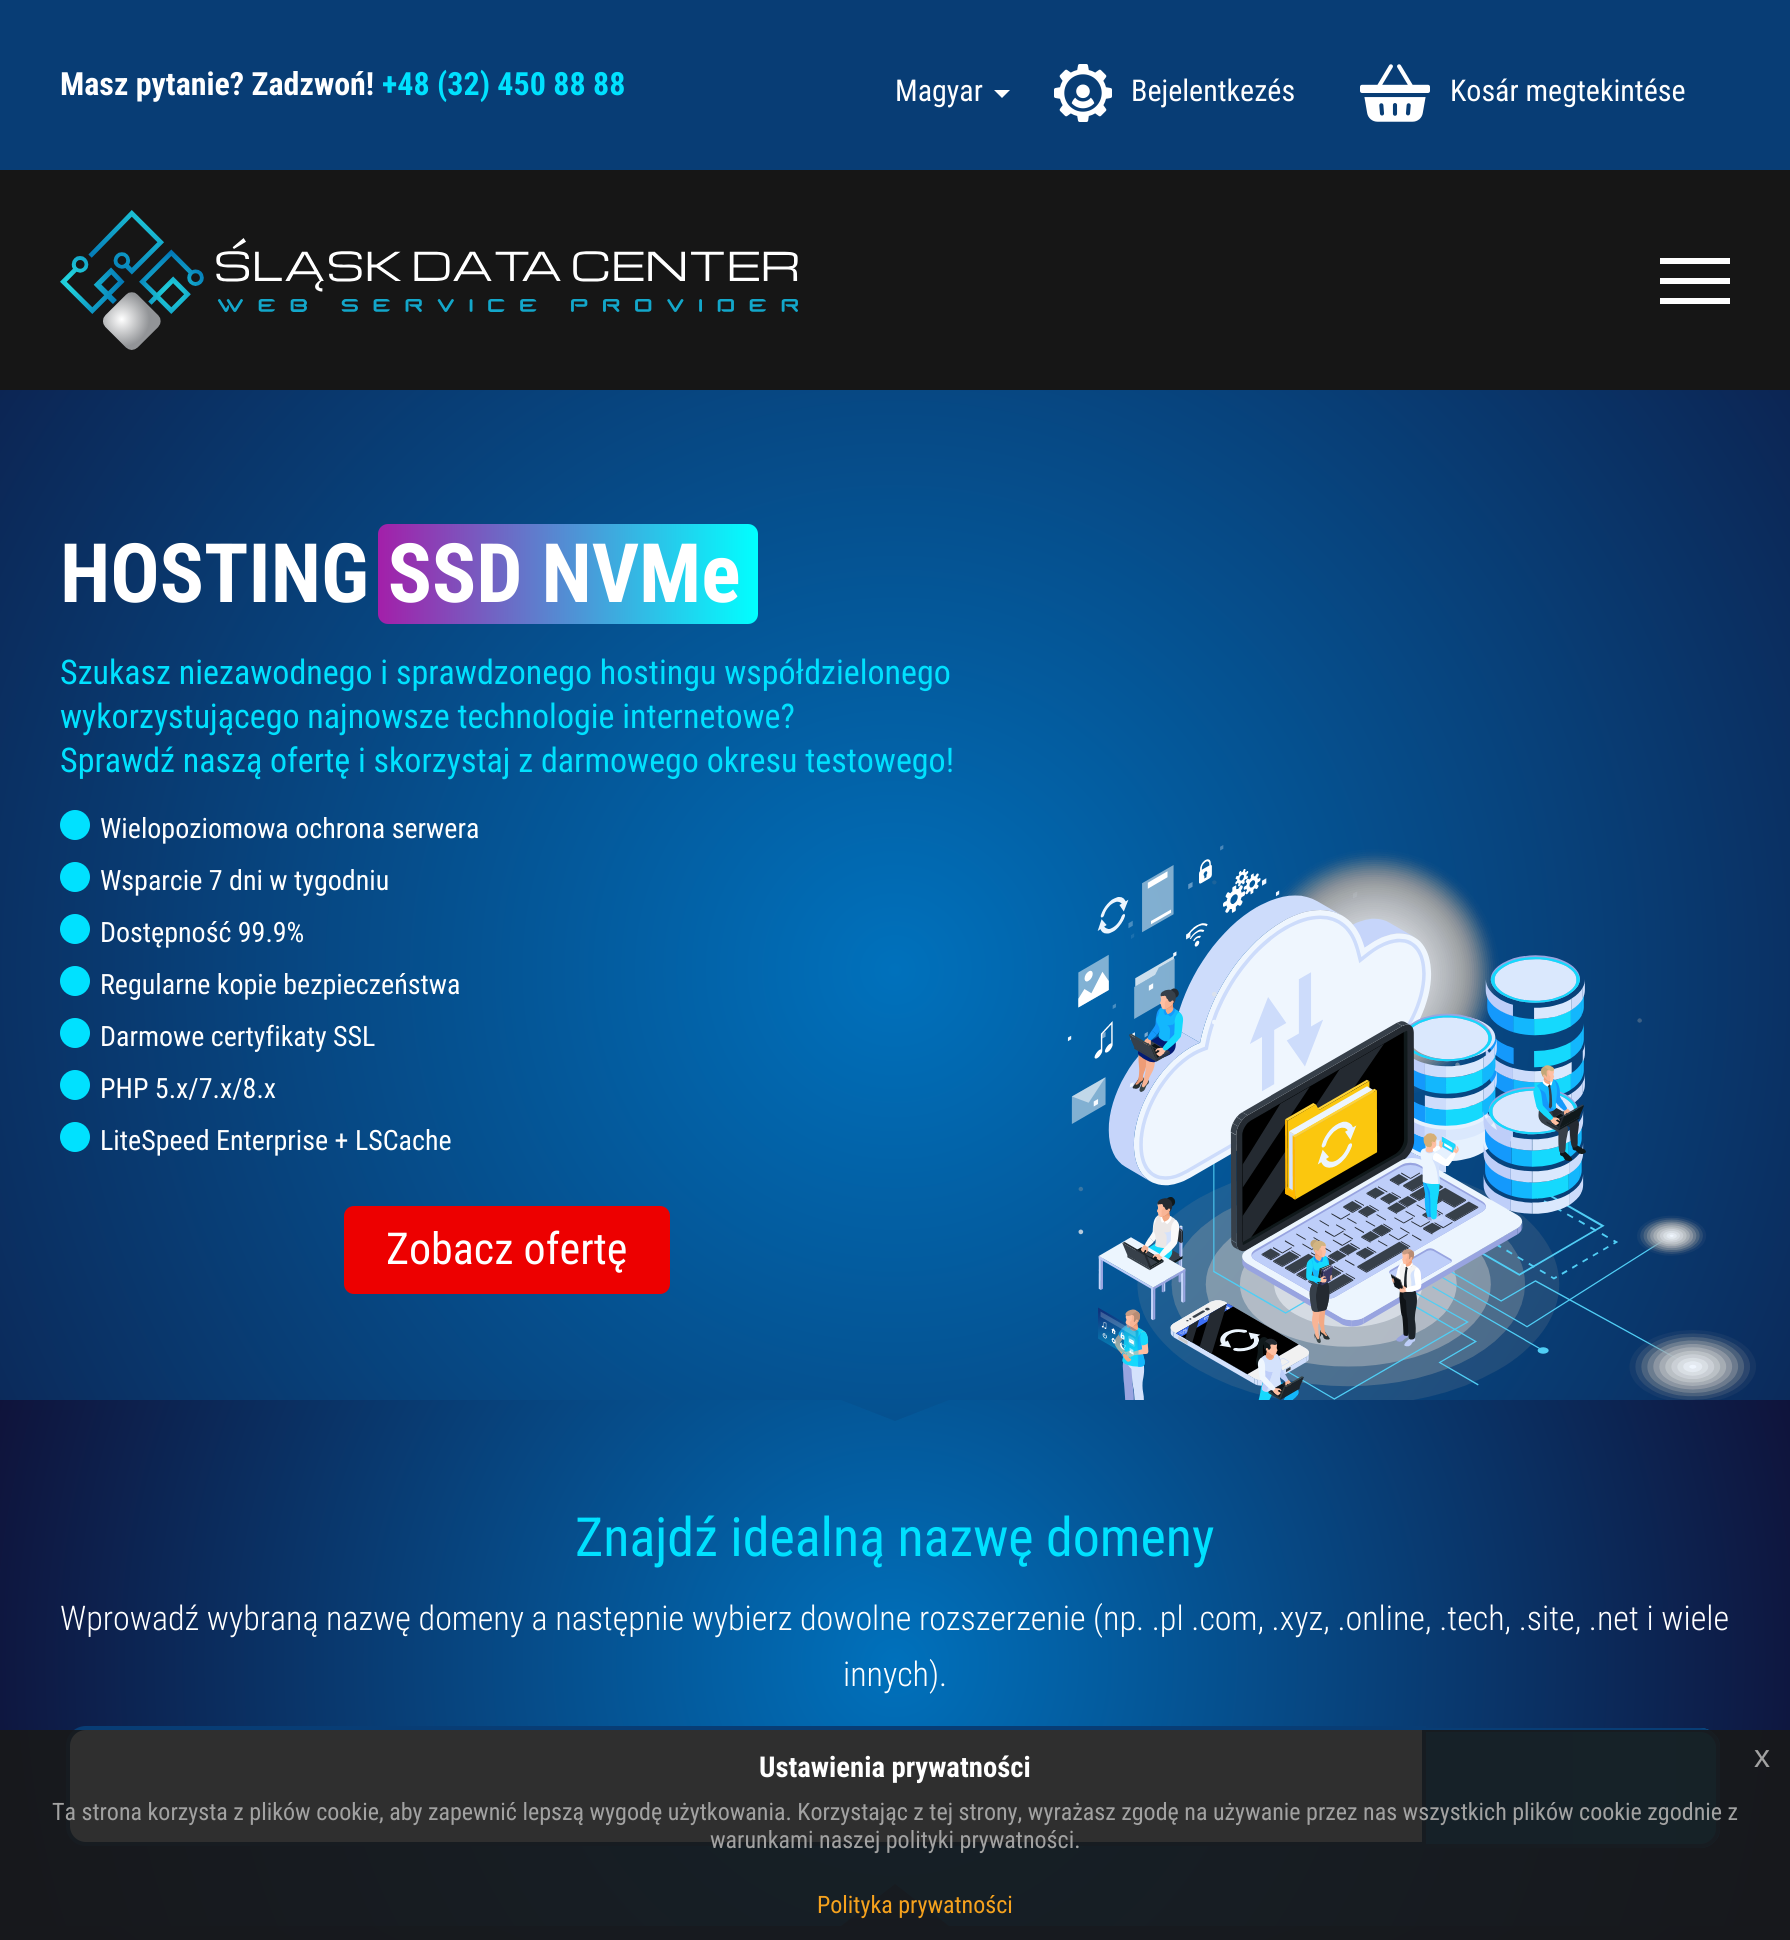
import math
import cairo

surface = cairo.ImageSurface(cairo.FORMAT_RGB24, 1790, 1940)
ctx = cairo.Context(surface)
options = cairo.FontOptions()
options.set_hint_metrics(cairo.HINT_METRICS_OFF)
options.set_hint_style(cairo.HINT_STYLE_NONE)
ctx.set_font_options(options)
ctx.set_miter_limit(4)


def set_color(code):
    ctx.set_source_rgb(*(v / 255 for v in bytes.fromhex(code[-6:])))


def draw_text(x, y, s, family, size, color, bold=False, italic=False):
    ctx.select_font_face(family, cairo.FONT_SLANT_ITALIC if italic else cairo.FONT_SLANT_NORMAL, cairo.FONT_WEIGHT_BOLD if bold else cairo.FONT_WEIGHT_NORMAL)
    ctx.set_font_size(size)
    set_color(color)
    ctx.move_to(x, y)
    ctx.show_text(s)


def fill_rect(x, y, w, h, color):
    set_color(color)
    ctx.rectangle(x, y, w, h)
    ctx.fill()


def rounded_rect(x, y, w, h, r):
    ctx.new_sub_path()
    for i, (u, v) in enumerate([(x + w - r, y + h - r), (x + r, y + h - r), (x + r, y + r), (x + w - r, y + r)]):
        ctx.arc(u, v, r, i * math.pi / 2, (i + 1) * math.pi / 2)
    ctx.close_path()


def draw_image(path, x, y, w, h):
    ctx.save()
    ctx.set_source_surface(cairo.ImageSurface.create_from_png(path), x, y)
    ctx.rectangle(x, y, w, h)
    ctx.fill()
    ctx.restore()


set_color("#ffffff")
ctx.paint()
gradient = cairo.RadialGradient(895, 970, 0, 895, 970, 1320)
gradient.add_color_stop_rgba(0, 0.008, 0, 0.141, 1)
gradient.add_color_stop_rgba(0, 0, 0.443, 0.737, 1)
gradient.add_color_stop_rgba(0, 0.945, 0.796, 0.471, 1)
gradient.add_color_stop_rgba(0, 0, 0.443, 0.737, 1)
gradient.add_color_stop_rgba(1, 0.059, 0.075, 0.231, 1)
ctx.set_source(gradient)
ctx.rectangle(0, 390, 1790, 1550)
ctx.fill()
fill_rect(0, 0, 1790, 170, "#083d75")
draw_text(60, 95, "Masz pytanie? Zadzwoń!", "Roboto Condensed", 32, "#ffffff", bold=True)
draw_text(382, 95, "+48 (32) 450 88 88", "Roboto Condensed", 32, "#00e1ff", bold=True)
draw_text(895, 101, "Magyar", "Roboto Condensed", 30, "#ffffff")
ctx.new_path()
ctx.move_to(994, 90)
ctx.line_to(1010, 90)
ctx.line_to(1002, 98)
ctx.close_path()
ctx.fill()
draw_image("assets/img1.png", 1054, 64, 58, 58)
draw_text(1131, 101, "Bejelentkezés", "Roboto Condensed", 30, "#ffffff")
draw_image("assets/img2.png", 1360, 64, 70, 58)
draw_text(1450, 101, "Kosár megtekintése", "Roboto Condensed", 30, "#ffffff")
fill_rect(0, 170, 1790, 220, "#161616")
draw_image("assets/img3.png", 60, 210, 738, 140)
fill_rect(1660, 278, 70, 6, "#ffffff")
fill_rect(1660, 258, 70, 6, "#ffffff")
fill_rect(1660, 298, 70, 6, "#ffffff")
gradient = cairo.LinearGradient(378, 574, 758, 574)
gradient.add_color_stop_rgba(0, 0.008, 0, 0.141, 1)
gradient.add_color_stop_rgba(0, 0.639, 0.122, 0.663, 1)
gradient.add_color_stop_rgba(0, 0.945, 0.796, 0.471, 1)
gradient.add_color_stop_rgba(0, 0.639, 0.122, 0.663, 1)
gradient.add_color_stop_rgba(1, 0, 1, 1, 1)
ctx.set_source(gradient)
rounded_rect(378, 524, 380, 100, 10)
ctx.fill()
draw_text(60, 602, "HOSTING SSD NVMe", "Roboto Condensed", 82, "#ffffff", bold=True)
draw_text(60, 684, "Szukasz niezawodnego i sprawdzonego hostingu współdzielonego", "Roboto Condensed", 34, "#00e1ff")
draw_text(60, 728, "wykorzystującego najnowsze technologie internetowe?", "Roboto Condensed", 34, "#00e1ff")
draw_text(60, 772, "Sprawdź naszą ofertę i skorzystaj z darmowego okresu testowego!", "Roboto Condensed", 34, "#00e1ff")
ctx.new_path()
ctx.arc(75, 825, 15, 0, 2 * math.pi)
ctx.fill()
draw_text(100, 838, "Wielopoziomowa ochrona serwera", "Roboto Condensed", 28, "#ffffff")
set_color("#00e1ff")
ctx.new_path()
ctx.arc(75, 877, 15, 0, 2 * math.pi)
ctx.fill()
draw_text(100, 890, "Wsparcie 7 dni w tygodniu", "Roboto Condensed", 28, "#ffffff")
set_color("#00e1ff")
ctx.new_path()
ctx.arc(75, 929, 15, 0, 2 * math.pi)
ctx.fill()
draw_text(100, 942, "Dostępność 99.9%", "Roboto Condensed", 28, "#ffffff")
set_color("#00e1ff")
ctx.new_path()
ctx.arc(75, 981, 15, 0, 2 * math.pi)
ctx.fill()
draw_text(100, 994, "Regularne kopie bezpieczeństwa", "Roboto Condensed", 28, "#ffffff")
set_color("#00e1ff")
ctx.new_path()
ctx.arc(75, 1033, 15, 0, 2 * math.pi)
ctx.fill()
draw_text(100, 1046, "Darmowe certyfikaty SSL", "Roboto Condensed", 28, "#ffffff")
set_color("#00e1ff")
ctx.new_path()
ctx.arc(75, 1085, 15, 0, 2 * math.pi)
ctx.fill()
draw_text(100, 1098, "PHP 5.x/7.x/8.x", "Roboto Condensed", 28, "#ffffff")
set_color("#00e1ff")
ctx.new_path()
ctx.arc(75, 1137, 15, 0, 2 * math.pi)
ctx.fill()
draw_text(100, 1150, "LiteSpeed Enterprise + LSCache", "Roboto Condensed", 28, "#ffffff")
set_color("#ed0000")
rounded_rect(345, 1207, 324, 86, 9)
ctx.fill_preserve()
ctx.stroke()
draw_text(386, 1264, "Zobacz ofertę", "Roboto Condensed", 44, "#ffffff")
draw_image("assets/img4.png", 1067, 845, 689, 555)
gradient = cairo.RadialGradient(895, 1663, 0, 895, 1663, 933)
gradient.add_color_stop_rgba(0, 0.008, 0, 0.141, 1)
gradient.add_color_stop_rgba(0, 0, 0.443, 0.737, 1)
gradient.add_color_stop_rgba(0, 0.945, 0.796, 0.471, 1)
gradient.add_color_stop_rgba(0, 0, 0.443, 0.737, 1)
gradient.add_color_stop_rgba(1, 0.059, 0.075, 0.231, 1)
ctx.set_source(gradient)
ctx.new_path()
ctx.move_to(895, 1421)
ctx.line_to(841, 1400)
ctx.line_to(0, 1400)
ctx.line_to(0, 1926)
ctx.line_to(841, 1926)
ctx.line_to(895, 1884)
ctx.line_to(949, 1926)
ctx.line_to(1790, 1926)
ctx.line_to(1790, 1400)
ctx.line_to(949, 1400)
ctx.close_path()
ctx.fill()
draw_text(575, 1556, "Znajdź idealną nazwę domeny", "Roboto Condensed", 54, "#00e1ff")
draw_text(60, 1630, "Wprowadź wybraną nazwę domeny a następnie wybierz dowolne rozszerzenie (np. .pl .com, .xyz, .online, .tech, .site, .net i wiele", "Roboto Condensed Light", 34, "#ffffff")
draw_text(843, 1686, "innych).", "Roboto Condensed Light", 34, "#ffffff")
ctx.new_path()
ctx.move_to(86, 1728)
ctx.line_to(1424, 1728)
ctx.line_to(1424, 1844)
ctx.line_to(86, 1844)
ctx.curve_to(76, 1844, 68, 1836, 68, 1826)
ctx.line_to(68, 1746)
ctx.curve_to(68, 1736, 76, 1728, 86, 1728)
ctx.close_path()
ctx.fill_preserve()
set_color("#083d75")
ctx.set_line_width(4)
ctx.stroke()
gradient = cairo.LinearGradient(1426, 1788, 1716, 1788)
gradient.add_color_stop_rgba(0, 0.008, 0, 0.141, 1)
gradient.add_color_stop_rgba(0, 0, 0.443, 0.737, 1)
gradient.add_color_stop_rgba(0, 0.945, 0.796, 0.471, 1)
gradient.add_color_stop_rgba(0, 0, 0.443, 0.737, 1)
gradient.add_color_stop_rgba(1, 0.02, 0.478, 0.694, 1)
ctx.set_source(gradient)
ctx.new_path()
ctx.move_to(1426, 1728)
ctx.line_to(1426, 1848)
ctx.line_to(1700, 1848)
ctx.curve_to(1707, 1848, 1712, 1845, 1716, 1840)
ctx.line_to(1716, 1736)
ctx.curve_to(1712, 1731, 1707, 1728, 1700, 1728)
ctx.close_path()
ctx.fill()
gradient = cairo.LinearGradient(1716, 1788, 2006, 1788)
gradient.add_color_stop_rgba(0, 0.008, 0, 0.141, 1)
gradient.add_color_stop_rgba(0, 0, 0.443, 0.737, 1)
gradient.add_color_stop_rgba(0, 0.945, 0.796, 0.471, 1)
gradient.add_color_stop_rgba(0, 0, 0.443, 0.737, 1)
gradient.add_color_stop_rgba(1, 0.02, 0.478, 0.694, 1)
ctx.set_source(gradient)
ctx.new_path()
ctx.move_to(1716, 1736)
ctx.curve_to(1719, 1739, 1720, 1743, 1720, 1748)
ctx.line_to(1720, 1828)
ctx.curve_to(1720, 1833, 1719, 1837, 1716, 1840)
ctx.close_path()
ctx.fill()
ctx.new_path()
ctx.move_to(1424, 1730)
ctx.line_to(1700, 1730)
ctx.curve_to(1710, 1730, 1718, 1738, 1718, 1748)
ctx.line_to(1718, 1828)
ctx.curve_to(1718, 1838, 1710, 1846, 1700, 1846)
ctx.line_to(1424, 1846)
ctx.close_path()
set_color("#083d75")
ctx.stroke()
ctx.set_source_rgba(0.098, 0.098, 0.098, 0.9)
ctx.rectangle(0, 1730, 1790, 210)
ctx.fill()
draw_text(759, 1777, "Ustawienia prywatności", "Roboto Condensed", 28.75, "#ffffff", bold=True)
draw_text(1754, 1767, "x", "Liberation Sans", 32, "#a2a2a2")
draw_text(52, 1820, "Ta strona korzysta z plików cookie, aby zapewnić lepszą wygodę użytkowania. Korzystając z tej strony, wyrażasz zgodę na używanie przez nas wszystkich plików cookie zgodnie z", "Roboto Condensed", 24, "#a2a2a2")
draw_text(710, 1848, "warunkami naszej polityki prywatności.", "Roboto Condensed", 24, "#a2a2a2")
draw_text(817, 1913, "Polityka prywatności", "Roboto Condensed", 24, "#f6a21d")
surface.write_to_png("output.png")
